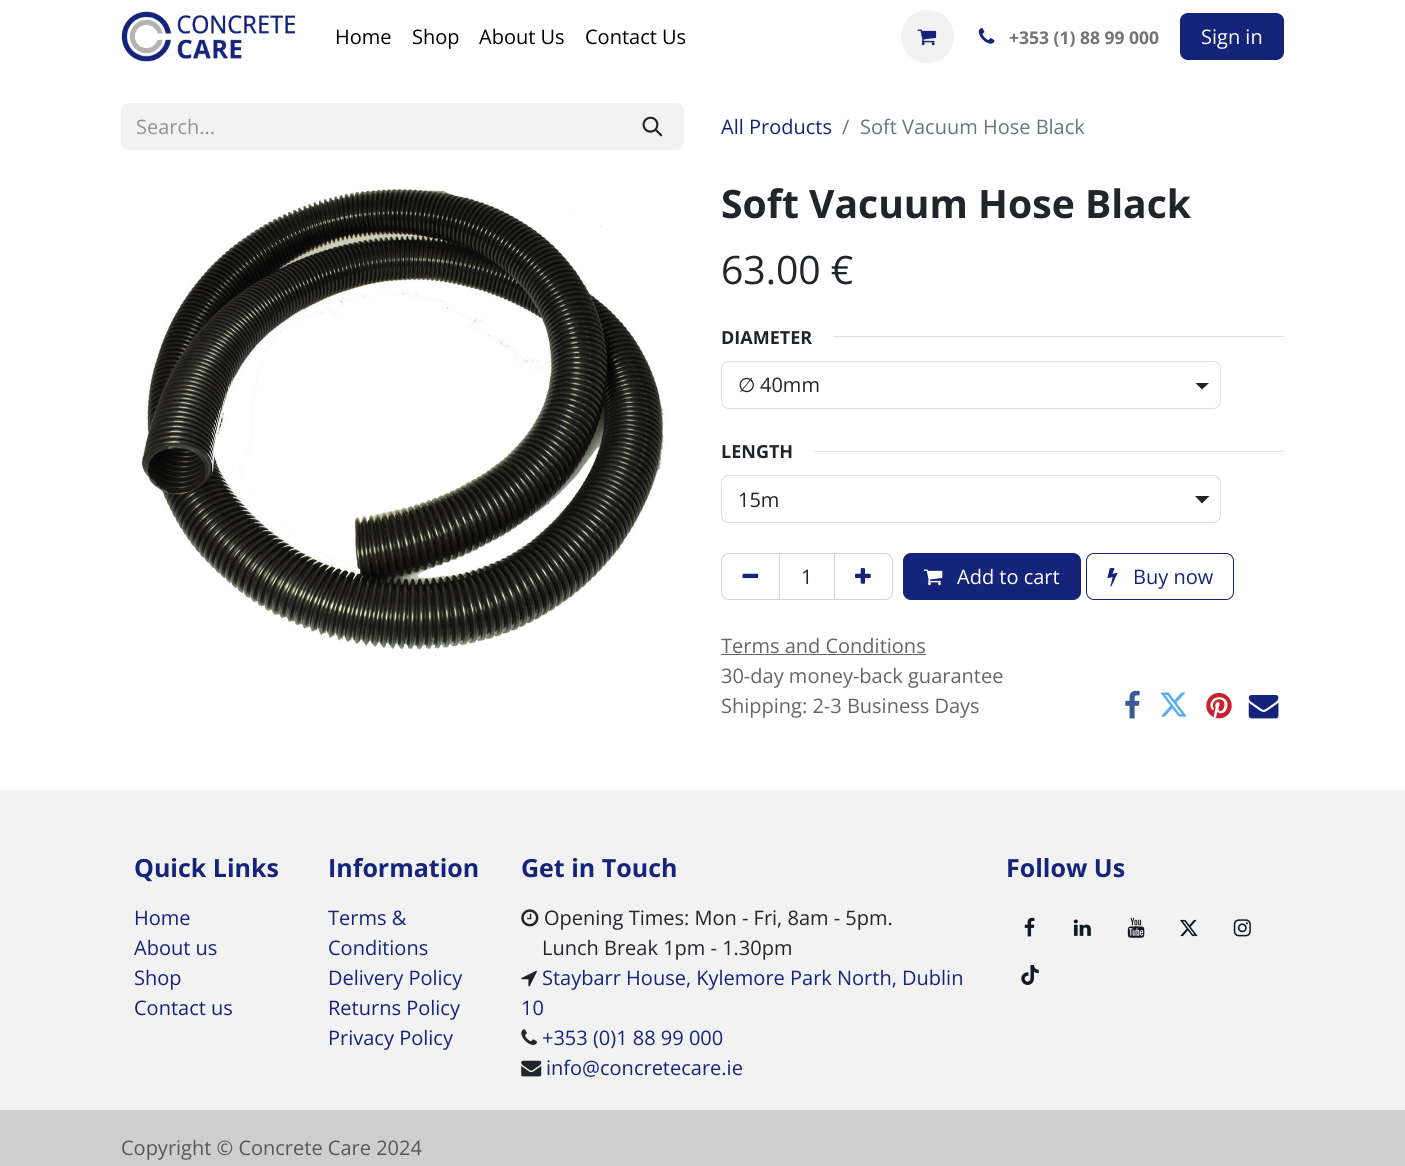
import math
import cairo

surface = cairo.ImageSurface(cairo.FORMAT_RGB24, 1405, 1166)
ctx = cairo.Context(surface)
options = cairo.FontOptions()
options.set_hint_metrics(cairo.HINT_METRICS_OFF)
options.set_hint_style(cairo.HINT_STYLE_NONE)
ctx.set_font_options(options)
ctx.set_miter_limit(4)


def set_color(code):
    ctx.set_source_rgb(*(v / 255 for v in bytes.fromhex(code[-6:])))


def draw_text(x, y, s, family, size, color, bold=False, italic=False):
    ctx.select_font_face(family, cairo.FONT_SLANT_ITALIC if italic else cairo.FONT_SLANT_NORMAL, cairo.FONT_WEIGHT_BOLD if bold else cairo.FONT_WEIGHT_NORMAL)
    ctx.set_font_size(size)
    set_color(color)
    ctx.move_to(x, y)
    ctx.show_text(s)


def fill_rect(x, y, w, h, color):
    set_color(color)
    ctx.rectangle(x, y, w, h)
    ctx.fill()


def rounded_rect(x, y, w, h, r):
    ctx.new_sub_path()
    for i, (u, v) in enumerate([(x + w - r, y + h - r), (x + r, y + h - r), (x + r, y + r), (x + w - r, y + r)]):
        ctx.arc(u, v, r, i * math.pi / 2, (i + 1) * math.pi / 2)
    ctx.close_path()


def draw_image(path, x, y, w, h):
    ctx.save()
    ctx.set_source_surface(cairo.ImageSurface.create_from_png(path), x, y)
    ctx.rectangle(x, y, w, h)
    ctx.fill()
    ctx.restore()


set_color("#ffffff")
ctx.paint()
draw_image("assets/img1.png", 121, 11, 174, 51)
draw_text(335, 44, "Home", "Open Sans", 20, "#000000")
draw_text(412, 44, "Shop", "Open Sans", 20, "#000000")
draw_text(479, 44, "About Us", "Open Sans", 20, "#000000")
draw_text(585, 44, "Contact Us", "Open Sans", 20, "#000000")
set_color("#f2f2f2")
ctx.new_path()
ctx.arc(927.5, 36.5, 26.5, 0, 2 * math.pi)
ctx.fill()
draw_image("assets/img2.png", 917, 29, 20, 17)
draw_image("assets/img3.png", 978, 28, 17, 16)
draw_text(1009, 44, "+353 (1) 88 99 000", "Open Sans", 17.5, "#737373", bold=True)
set_color("#14247b")
rounded_rect(1180.5, 13.5, 103, 46, 7.5)
ctx.fill_preserve()
ctx.set_line_width(1)
ctx.stroke()
draw_text(1201, 44, "Sign in", "Open Sans", 20, "#ffffff")
set_color("#f3f2f2")
ctx.new_path()
ctx.move_to(129, 103)
ctx.line_to(623, 103)
ctx.line_to(623, 150)
ctx.line_to(129, 150)
ctx.curve_to(124.5, 150, 121, 146.5, 121, 142)
ctx.line_to(121, 111)
ctx.curve_to(121, 106.5, 124.5, 103, 129, 103)
ctx.close_path()
ctx.fill()
draw_text(136, 134, "Search...", "Open Sans", 20, "#909294")
set_color("#f3f2f2")
ctx.new_path()
ctx.move_to(621.5, 103.5)
ctx.line_to(676, 103.5)
ctx.curve_to(680, 103.5, 683.5, 107, 683.5, 111)
ctx.line_to(683.5, 142)
ctx.curve_to(683.5, 146, 680, 149.5, 676, 149.5)
ctx.line_to(621.5, 149.5)
ctx.close_path()
ctx.fill_preserve()
ctx.stroke()
draw_image("assets/img4.png", 642, 116, 21, 21)
draw_text(721, 134, "All Products", "Open Sans", 20, "#14247b")
draw_text(842, 134, "/", "Open Sans", 20, "#6c757d")
draw_text(860, 134, "Soft Vacuum Hose Black", "Open Sans", 20, "#6c757d")
draw_image("assets/img5.png", 139, 189, 527, 463)
draw_text(721, 218, "Soft Vacuum Hose Black", "Open Sans", 39.1, "#212529", bold=True)
draw_text(721, 284, "63.00 €", "Open Sans", 39.1, "#212529")
draw_text(721, 344, "DIAMETER", "Open Sans", 18, "#212529", bold=True)
fill_rect(833, 336, 451, 1, "#dededf")
ctx.save()
ctx.rectangle(1195, 383, 25, 13)
ctx.clip()
set_color("#212529")
ctx.new_path()
ctx.move_to(1195, 382.5)
ctx.line_to(1209.5, 382.5)
ctx.line_to(1202, 389.5)
ctx.close_path()
ctx.fill()
ctx.restore()
rounded_rect(721.5, 361.5, 499, 47, 7.5)
ctx.stroke()
draw_text(738, 392, "∅", "DejaVu Sans", 20, "#212529")
draw_text(760, 392, "40mm", "Open Sans", 20, "#212529")
draw_text(721, 458, "LENGTH", "Open Sans", 18, "#212529", bold=True)
fill_rect(814, 451, 470, 1, "#dededf")
set_color("#212529")
ctx.new_path()
ctx.move_to(1195, 496)
ctx.line_to(1209.5, 496)
ctx.line_to(1202, 503.5)
ctx.close_path()
ctx.fill()
rounded_rect(721.5, 475.5, 499, 47, 7.5)
set_color("#dededf")
ctx.stroke()
draw_text(738, 507, "15m", "Open Sans", 20, "#212529")
ctx.rectangle(779.5, 553.5, 55, 46)
set_color("#ced4da")
ctx.stroke()
ctx.new_path()
ctx.move_to(729, 553.5)
ctx.line_to(779.5, 553.5)
ctx.line_to(779.5, 599.5)
ctx.line_to(729, 599.5)
ctx.curve_to(725, 599.5, 721.5, 596, 721.5, 592)
ctx.line_to(721.5, 561)
ctx.curve_to(721.5, 557, 725, 553.5, 729, 553.5)
ctx.close_path()
ctx.stroke()
draw_image("assets/img6.png", 742, 573, 17, 6)
draw_text(801, 584, "1", "Open Sans", 20, "#212529")
ctx.new_path()
ctx.move_to(834.5, 553.5)
ctx.line_to(885, 553.5)
ctx.curve_to(889, 553.5, 892.5, 557, 892.5, 561)
ctx.line_to(892.5, 592)
ctx.curve_to(892.5, 596, 889, 599.5, 885, 599.5)
ctx.line_to(834.5, 599.5)
ctx.close_path()
set_color("#ced4da")
ctx.stroke()
draw_image("assets/img7.png", 855, 568, 16, 16)
set_color("#14247b")
rounded_rect(903.5, 553.5, 177, 46, 7.5)
ctx.fill_preserve()
ctx.stroke()
draw_image("assets/img8.png", 923, 569, 20, 17)
draw_text(957, 584, "Add to cart", "Open Sans", 20, "#ffffff")
rounded_rect(1086.5, 553.5, 147, 46, 7.5)
set_color("#14247b")
ctx.stroke()
draw_image("assets/img9.png", 1107, 568, 11, 19)
draw_text(1133, 584, "Buy now", "Open Sans", 20, "#14247b")
draw_text(721, 653, "Terms and Conditions", "Open Sans", 20, "#646669")
fill_rect(721, 654, 205, 1, "#646669")
draw_text(721, 683, "30-day money-back guarantee", "Open Sans", 20, "#646669")
draw_text(721, 713, "Shipping: 2-3 Business Days", "Open Sans", 20, "#646669")
draw_image("assets/img10.png", 1125, 690, 15, 29)
draw_image("assets/img11.png", 1160, 692, 27, 25)
draw_image("assets/img12.png", 1206, 692, 26, 27)
draw_image("assets/img13.png", 1248, 695, 31, 24)
fill_rect(0, 790, 1405, 320, "#f3f2f2")
draw_text(134, 877, "Quick Links", "Open Sans", 25, "#14247b", bold=True)
draw_text(134, 925, "Home", "Open Sans", 20, "#14247b")
draw_text(134, 955, "About us", "Open Sans", 20, "#14247b")
draw_text(134, 985, "Shop", "Open Sans", 20, "#14247b")
draw_text(134, 1015, "Contact us", "Open Sans", 20, "#14247b")
draw_text(328, 877, "Information", "Open Sans", 25, "#14247b", bold=True)
draw_text(328, 925, "Terms &", "Open Sans", 20, "#14247b")
draw_text(328, 955, "Conditions", "Open Sans", 20, "#14247b")
draw_text(328, 985, "Delivery Policy", "Open Sans", 20, "#14247b")
draw_text(328, 1015, "Returns Policy", "Open Sans", 20, "#14247b")
draw_text(328, 1045, "Privacy Policy", "Open Sans", 20, "#14247b")
draw_text(521, 877, "Get in Touch", "Open Sans", 25, "#14247b", bold=True)
draw_image("assets/img14.png", 521, 909, 18, 18)
draw_text(544, 925, "Opening Times: Mon - Fri, 8am - 5pm.", "Open Sans", 20, "#212529")
draw_text(542, 955, "Lunch Break 1pm - 1.30pm", "Open Sans", 20, "#212529")
draw_image("assets/img15.png", 521, 970, 16, 17)
draw_text(542, 985, "Staybarr House, Kylemore Park North, Dublin", "Open Sans", 20, "#14247b")
draw_text(521, 1015, "10", "Open Sans", 20, "#14247b")
draw_image("assets/img16.png", 521, 1029, 16, 16)
draw_text(542, 1045, "+353 (0)1 88 99 000", "Open Sans", 20, "#14247b")
draw_image("assets/img17.png", 521, 1060, 21, 17)
draw_text(546, 1075, "info@concretecare.ie", "Open Sans", 20, "#14247b")
draw_text(1006, 877, "Follow Us", "Open Sans", 25, "#14247b", bold=True)
draw_image("assets/img18.png", 1024, 917, 11, 20)
draw_image("assets/img19.png", 1073, 919, 18, 17)
draw_image("assets/img20.png", 1127, 917, 18, 21)
draw_image("assets/img21.png", 1180, 919, 18, 18)
draw_image("assets/img22.png", 1233, 919, 18, 18)
draw_image("assets/img23.png", 1021, 965, 18, 20)
fill_rect(0, 1110, 1405, 56, "#cfcece")
draw_text(121, 1155, "Copyright © Concrete Care 2024", "Open Sans", 20, "#55585b")
surface.write_to_png("output.png")
